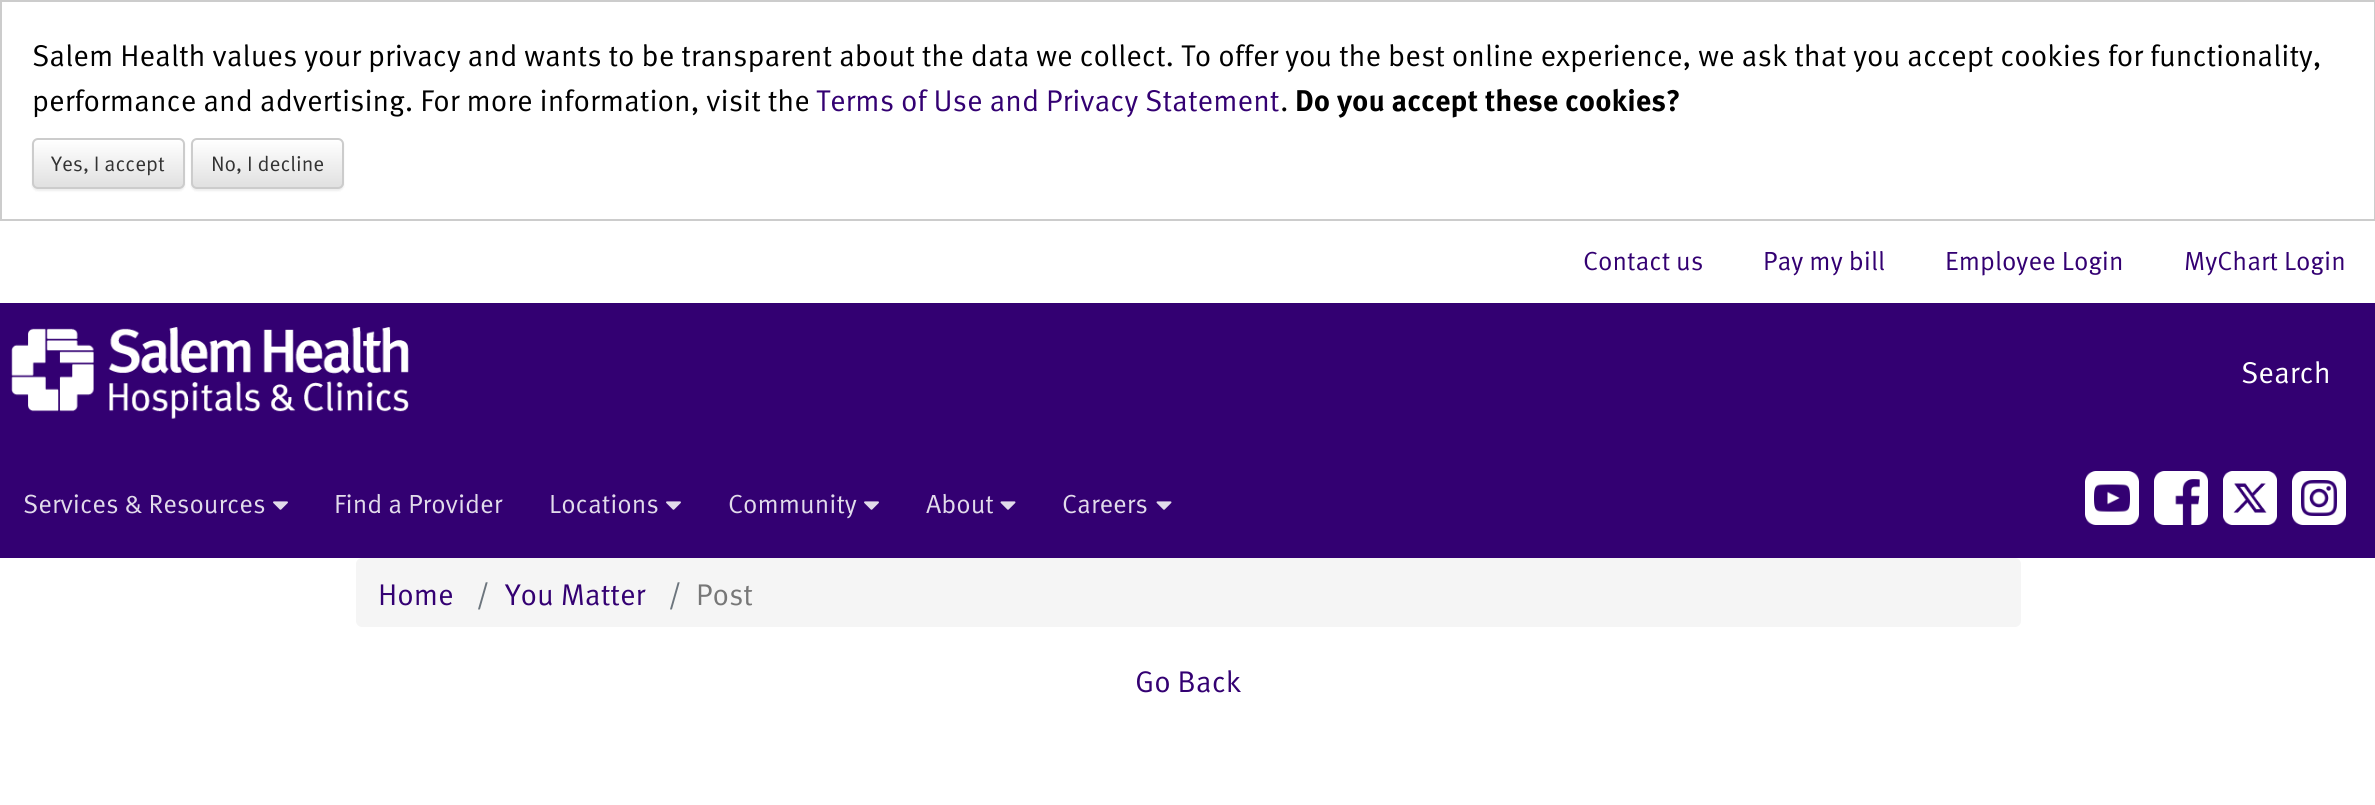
import math
import cairo

surface = cairo.ImageSurface(cairo.FORMAT_RGB24, 2375, 805)
ctx = cairo.Context(surface)
options = cairo.FontOptions()
options.set_hint_metrics(cairo.HINT_METRICS_OFF)
options.set_hint_style(cairo.HINT_STYLE_NONE)
ctx.set_font_options(options)
ctx.set_miter_limit(4)


def set_color(code):
    ctx.set_source_rgb(*(v / 255 for v in bytes.fromhex(code[-6:])))


def draw_text(x, y, s, family, size, color, bold=False, italic=False):
    ctx.select_font_face(family, cairo.FONT_SLANT_ITALIC if italic else cairo.FONT_SLANT_NORMAL, cairo.FONT_WEIGHT_BOLD if bold else cairo.FONT_WEIGHT_NORMAL)
    ctx.set_font_size(size)
    set_color(color)
    ctx.move_to(x, y)
    ctx.show_text(s)


def fill_rect(x, y, w, h, color):
    set_color(color)
    ctx.rectangle(x, y, w, h)
    ctx.fill()


def rounded_rect(x, y, w, h, r):
    ctx.new_sub_path()
    for i, (u, v) in enumerate([(x + w - r, y + h - r), (x + r, y + h - r), (x + r, y + r), (x + w - r, y + r)]):
        ctx.arc(u, v, r, i * math.pi / 2, (i + 1) * math.pi / 2)
    ctx.close_path()


def draw_shadow(x, y, w, h, r, blur, alpha):
    ctx.push_group_with_content(cairo.CONTENT_ALPHA)
    ctx.set_operator(cairo.OPERATOR_SOURCE)
    for i in range(15, -16, -2):
        e = blur * i / 6
        if min(w, h) + 2 * e > 0:
            ctx.set_source_rgba(0, 0, 0, alpha * math.erfc((i - 1) / 8.5) / 2)
            rounded_rect(x - e, y - e, w + 2 * e, h + 2 * e, max(0, min(r + e + blur * .6, min(w, h) / 2 + e)))
            ctx.fill()
    ctx.mask(ctx.pop_group())


def draw_image(path, x, y, w, h):
    ctx.save()
    ctx.set_source_surface(cairo.ImageSurface.create_from_png(path), x, y)
    ctx.rectangle(x, y, w, h)
    ctx.fill()
    ctx.restore()


set_color("#ffffff")
ctx.paint()
ctx.rectangle(1, 1, 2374, 219)
set_color("#cccccc")
ctx.stroke()
draw_text(32, 66, "Salem Health values your privacy and wants to be transparent about the data we collect. To offer you the best online experience, we ask that you accept cookies for functionality,", "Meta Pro", 30, "#000000")
draw_text(32, 111, "performance and advertising. For more information, visit the", "Meta Pro", 30, "#000000")
draw_text(816, 111, "Terms of Use and Privacy Statement", "Meta Pro", 30, "#330072")
draw_text(1280, 111, ".", "Meta Pro", 30, "#000000")
draw_text(1295, 111, "Do you accept these cookies?", "Meta Pro", 30, "#000000", bold=True)
set_color("#000000")
draw_shadow(32, 140, 153, 51, 6, 1, 0.07)
ctx.save()
rounded_rect(32, 138, 153, 51, 6)
ctx.clip()
gradient = cairo.LinearGradient(108, 140, 108, 188)
gradient.add_color_stop_rgba(0, 1, 1, 1, 1)
gradient.add_color_stop_rgba(1, 0.878, 0.878, 0.878, 1)
ctx.set_source(gradient)
ctx.rectangle(32, 140, 153, 48)
ctx.fill()
ctx.restore()
rounded_rect(33, 139, 151, 49, 5)
set_color("#cccccc")
ctx.stroke()
draw_text(51, 171, "Yes, I accept", "Meta Pro", 21, "#333333")
set_color("#000000")
draw_shadow(191, 140, 153, 51, 6, 1, 0.07)
ctx.save()
rounded_rect(191, 138, 153, 51, 6)
ctx.clip()
gradient = cairo.LinearGradient(267, 140, 267, 188)
gradient.add_color_stop_rgba(0, 1, 1, 1, 1)
gradient.add_color_stop_rgba(1, 0.878, 0.878, 0.878, 1)
ctx.set_source(gradient)
ctx.rectangle(191, 140, 153, 48)
ctx.fill()
ctx.restore()
rounded_rect(192, 139, 151, 49, 5)
set_color("#cccccc")
ctx.stroke()
draw_text(211, 171, "No, I decline", "Meta Pro", 21, "#333333")
draw_text(1583, 270, "Contact us", "Meta Pro", 26.25, "#330072")
draw_text(1763, 270, "Pay my bill", "Meta Pro", 26.25, "#330072")
draw_text(1945, 270, "Employee Login", "Meta Pro", 26.25, "#330072")
draw_text(2184, 270, "MyChart Login", "Meta Pro", 26.25, "#330072")
fill_rect(0, 303, 2375, 255, "#330072")
draw_image("assets/img1.png", 11, 327, 398, 92)
draw_text(2241, 383, "Search", "Meta Pro", 30, "#ffffff")
draw_text(23, 513, "Services & Resources", "Meta Pro", 26.25, "#e2dbeb")
draw_image("assets/img2.png", 273, 501, 15, 9)
draw_text(334, 513, "Find a Provider", "Meta Pro", 26.25, "#e2dbeb")
draw_text(549, 513, "Locations", "Meta Pro", 26.25, "#e2dbeb")
draw_image("assets/img2.png", 666, 501, 15, 9)
draw_text(728, 513, "Community", "Meta Pro", 26.25, "#e2dbeb")
draw_image("assets/img2.png", 864, 501, 15, 9)
draw_text(926, 513, "About", "Meta Pro", 26.25, "#e2dbeb")
draw_image("assets/img3.png", 1000, 501, 16, 9)
draw_text(1062, 513, "Careers", "Meta Pro", 26.25, "#e2dbeb")
draw_image("assets/img3.png", 1156, 501, 16, 9)
draw_image("assets/img4.png", 2085, 471, 54, 54)
draw_image("assets/img5.png", 2154, 471, 54, 54)
draw_image("assets/img6.png", 2223, 471, 54, 54)
draw_image("assets/img7.png", 2292, 471, 54, 54)
set_color("#f5f5f5")
rounded_rect(356, 558, 1665, 69, 6)
ctx.fill()
draw_text(378, 605, "Home", "Meta Pro", 30, "#330072")
draw_text(476, 605, "/", "Meta Pro", 30, "#6c757d")
draw_text(505, 605, "You Matter", "Meta Pro", 30, "#330072")
draw_text(668, 605, "/", "Meta Pro", 30, "#6c757d")
draw_text(696, 605, "Post", "Meta Pro", 30, "#777777")
draw_text(1135, 692, "Go Back", "Meta Pro", 30, "#330072")
surface.write_to_png("output.png")
